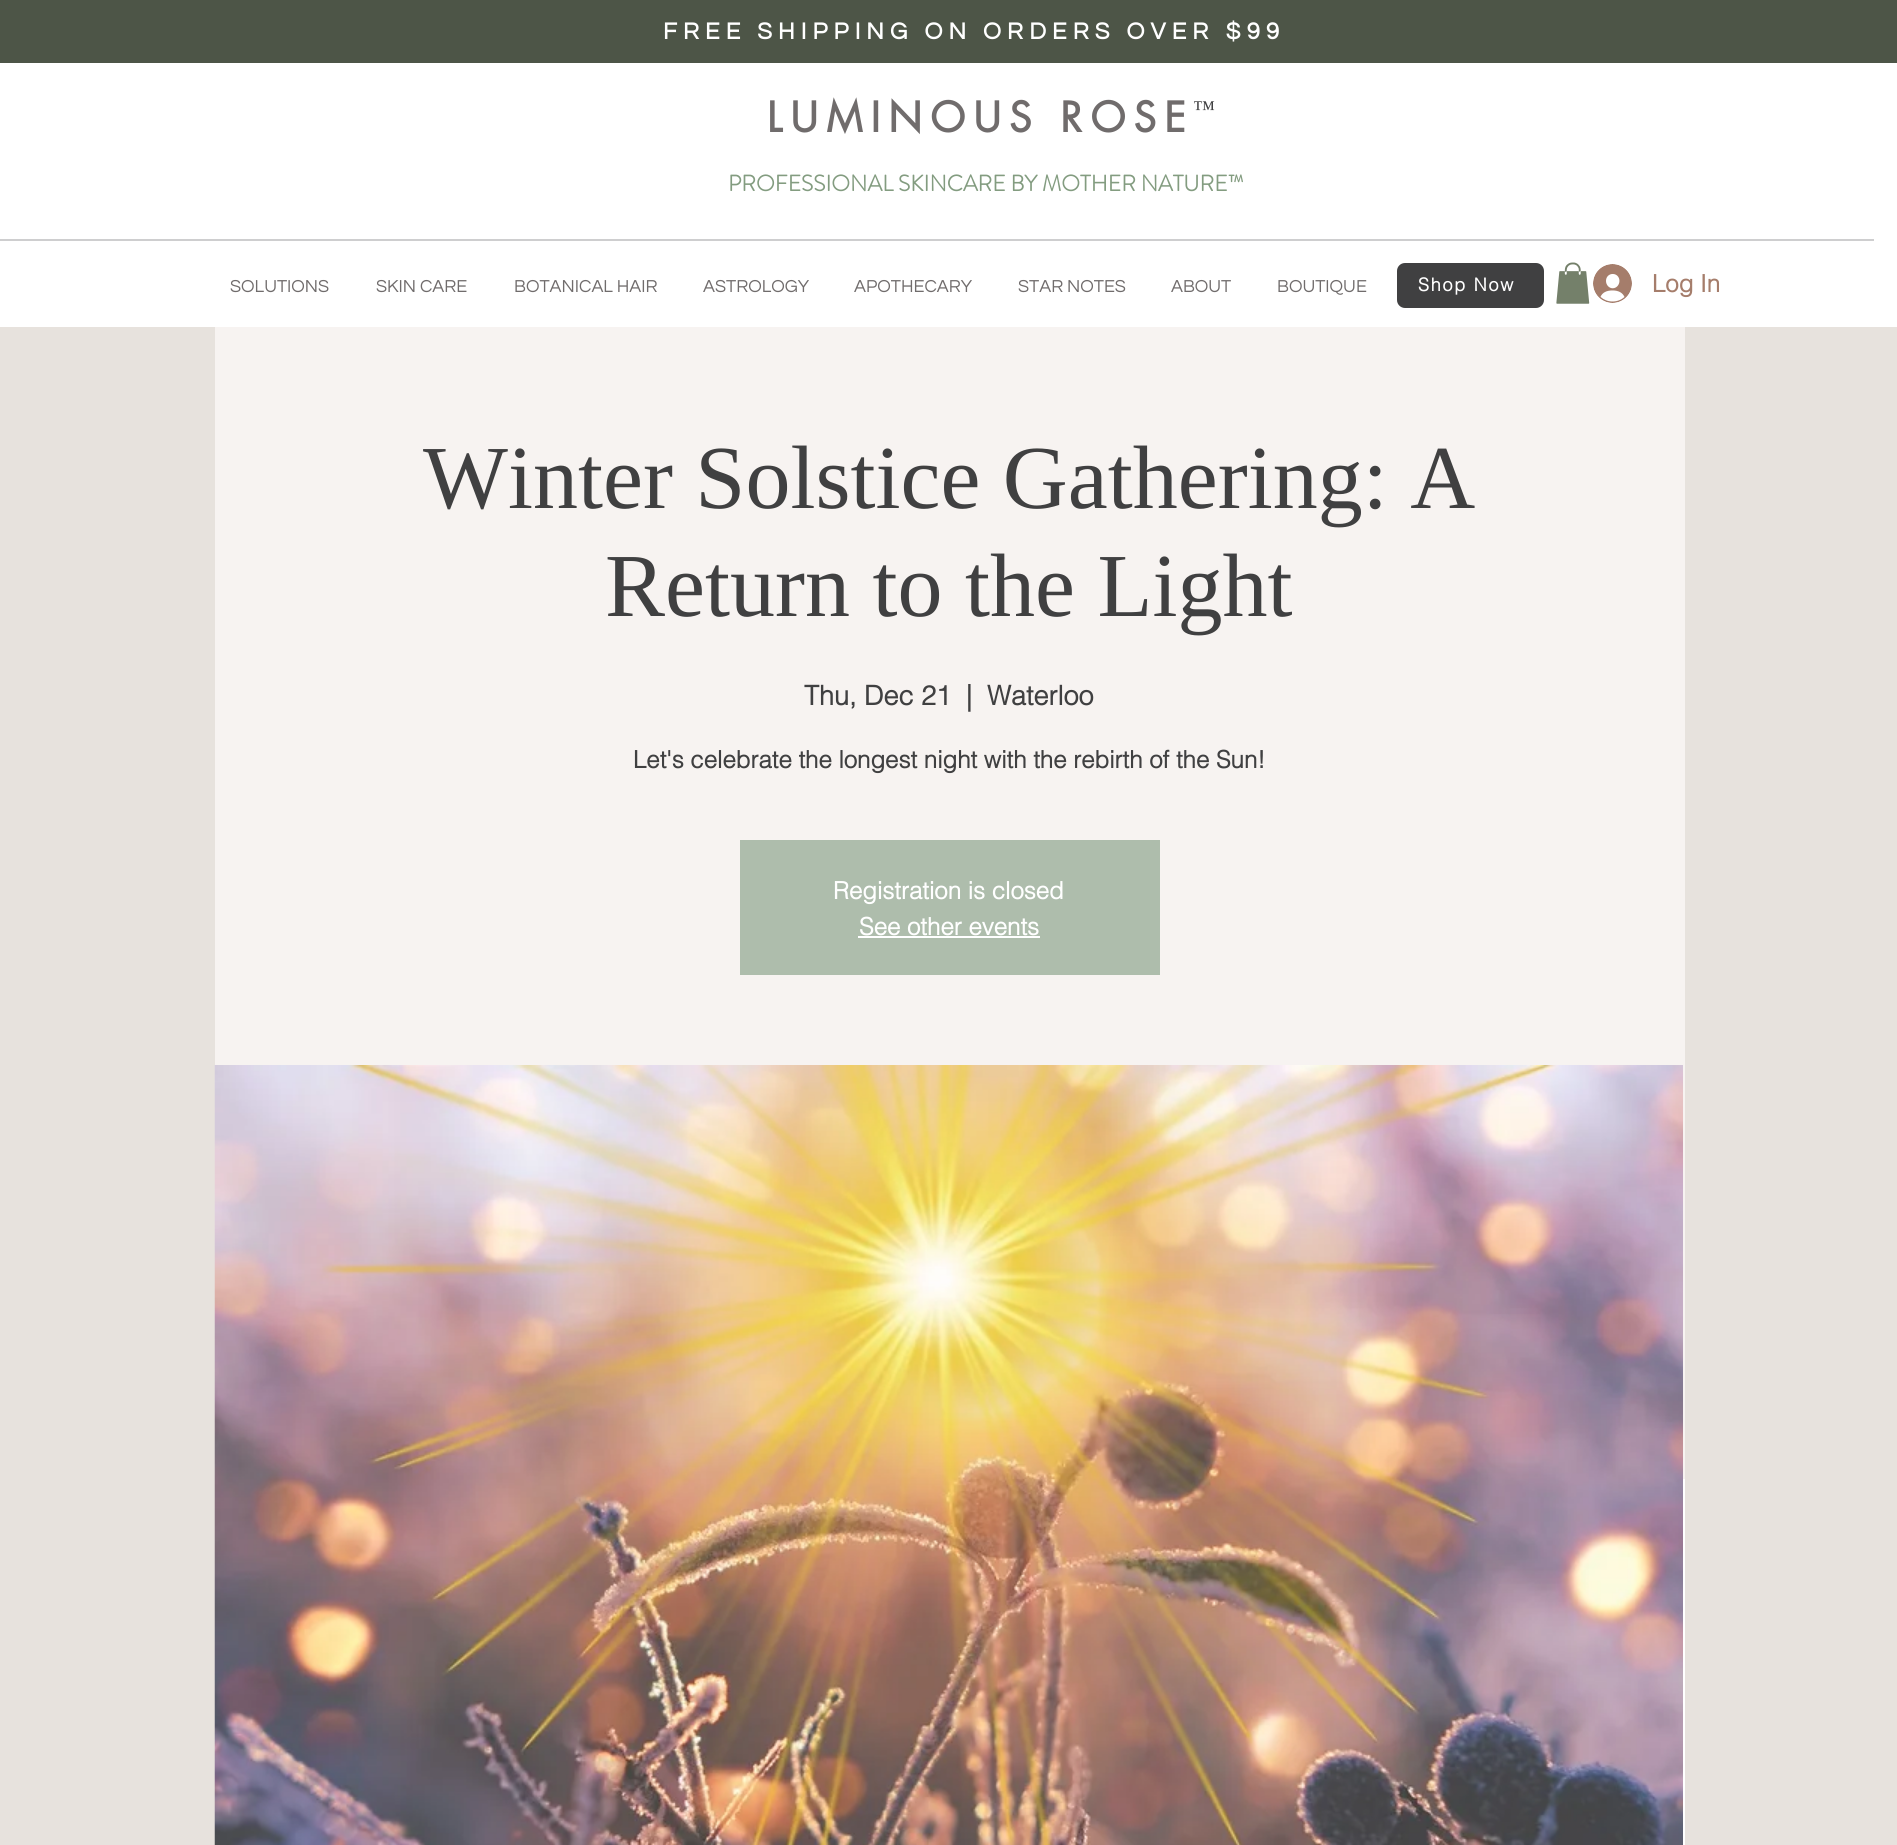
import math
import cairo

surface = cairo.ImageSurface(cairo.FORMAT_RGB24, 1897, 1845)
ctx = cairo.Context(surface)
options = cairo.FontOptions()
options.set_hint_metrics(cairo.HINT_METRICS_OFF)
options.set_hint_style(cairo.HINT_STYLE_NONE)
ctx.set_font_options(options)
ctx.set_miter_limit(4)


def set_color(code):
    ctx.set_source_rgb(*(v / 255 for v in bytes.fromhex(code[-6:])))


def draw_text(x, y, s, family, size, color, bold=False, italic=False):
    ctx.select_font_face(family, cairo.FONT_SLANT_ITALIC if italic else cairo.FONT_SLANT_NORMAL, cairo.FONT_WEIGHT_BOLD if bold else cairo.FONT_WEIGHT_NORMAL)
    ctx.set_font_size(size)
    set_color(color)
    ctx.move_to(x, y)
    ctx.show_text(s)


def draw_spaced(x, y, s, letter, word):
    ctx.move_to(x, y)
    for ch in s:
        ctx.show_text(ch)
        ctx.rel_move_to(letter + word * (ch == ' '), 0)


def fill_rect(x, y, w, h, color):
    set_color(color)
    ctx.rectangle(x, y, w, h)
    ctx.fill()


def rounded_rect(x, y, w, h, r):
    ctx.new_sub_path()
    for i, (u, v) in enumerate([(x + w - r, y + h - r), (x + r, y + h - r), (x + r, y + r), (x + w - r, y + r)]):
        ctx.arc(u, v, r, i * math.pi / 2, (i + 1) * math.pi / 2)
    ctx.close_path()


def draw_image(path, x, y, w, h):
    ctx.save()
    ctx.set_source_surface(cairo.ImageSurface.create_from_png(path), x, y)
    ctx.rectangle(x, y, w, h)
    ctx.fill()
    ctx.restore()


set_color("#e7e2dd")
ctx.paint()
fill_rect(0, 0, 1897, 63, "#4d5547")
ctx.select_font_face("Questrial", cairo.FONT_SLANT_NORMAL, cairo.FONT_WEIGHT_BOLD)
ctx.set_font_size(24)
set_color("#ffffff")
draw_spaced(663, 39, "FREE SHIPPING ON ORDERS OVER $99", 6, 0)
fill_rect(0, 63, 1897, 264, "#ffffff")
ctx.select_font_face("futura", cairo.FONT_SLANT_NORMAL, cairo.FONT_WEIGHT_BOLD)
ctx.set_font_size(40.5)
set_color("#706c6c")
draw_spaced(767, 132, "LUMINOUS ROSE", 8.1, 0)
draw_text(1193, 116, "™", "Liberation Serif", 22.5, "#404041")
draw_text(728, 191, "PROFESSIONAL SKINCARE BY MOTHER NATURE™", "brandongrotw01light", 22.5, "#839c80", bold=True)
fill_rect(0, 239, 1874, 2, "#cececf")
draw_text(230, 292, "SOLUTIONS", "Questrial", 18, "#706c6c")
draw_text(376, 292, "SKIN CARE", "Questrial", 18, "#706c6c")
draw_text(514, 292, "BOTANICAL HAIR", "Questrial", 18, "#706c6c")
draw_text(703, 292, "ASTROLOGY", "Questrial", 18, "#706c6c")
draw_text(854, 292, "APOTHECARY", "Questrial", 18, "#706c6c")
draw_text(1018, 292, "STAR NOTES", "Questrial", 18, "#706c6c")
draw_text(1171, 292, "ABOUT", "Questrial", 18, "#706c6c")
draw_text(1277, 292, "BOUTIQUE", "Questrial", 18, "#706c6c")
set_color("#404041")
rounded_rect(1397, 263, 147, 45, 8)
ctx.fill()
ctx.select_font_face("helvetica", cairo.FONT_SLANT_NORMAL, cairo.FONT_WEIGHT_BOLD)
set_color("#ffffff")
draw_spaced(1418, 291, "Shop Now", 1.75, 0)
draw_image("assets/img1.png", 1556, 262, 34, 42)
draw_image("assets/img2.png", 1593, 264, 39, 39)
draw_text(1652, 292, "Log In", "helvetica", 24, "#a57d6b", bold=True)
fill_rect(215, 327, 1470, 1152, "#f7f3f1")
draw_text(423, 508, "Winter Solstice Gathering: A", "Liberation Serif", 90, "#404041")
draw_text(605, 616, "Return to the Light", "Liberation Serif", 90, "#404041")
draw_text(804, 705, "Thu, Dec 21", "helvetica", 27, "#404041", bold=True)
draw_text(966, 705, "|", "helvetica", 27, "#404041", bold=True)
draw_text(987, 705, "Waterloo", "helvetica", 27, "#404041", bold=True)
draw_text(633, 768, "Let's celebrate the longest night with the rebirth of the Sun!", "helvetica", 24, "#404041", bold=True)
fill_rect(740, 840, 420, 135, "#aebdac")
draw_text(833, 899, "Registration is closed", "helvetica", 24, "#ffffff", bold=True)
draw_text(859, 935, "See other events", "helvetica", 24, "#ffffff", bold=True)
fill_rect(858, 936, 182, 2, "#ffffff")
draw_image("assets/img3.png", 214, 1065, 1469, 780)
fill_rect(1683, 1479, 2, 366, "#ffffff")
surface.write_to_png("output.png")
